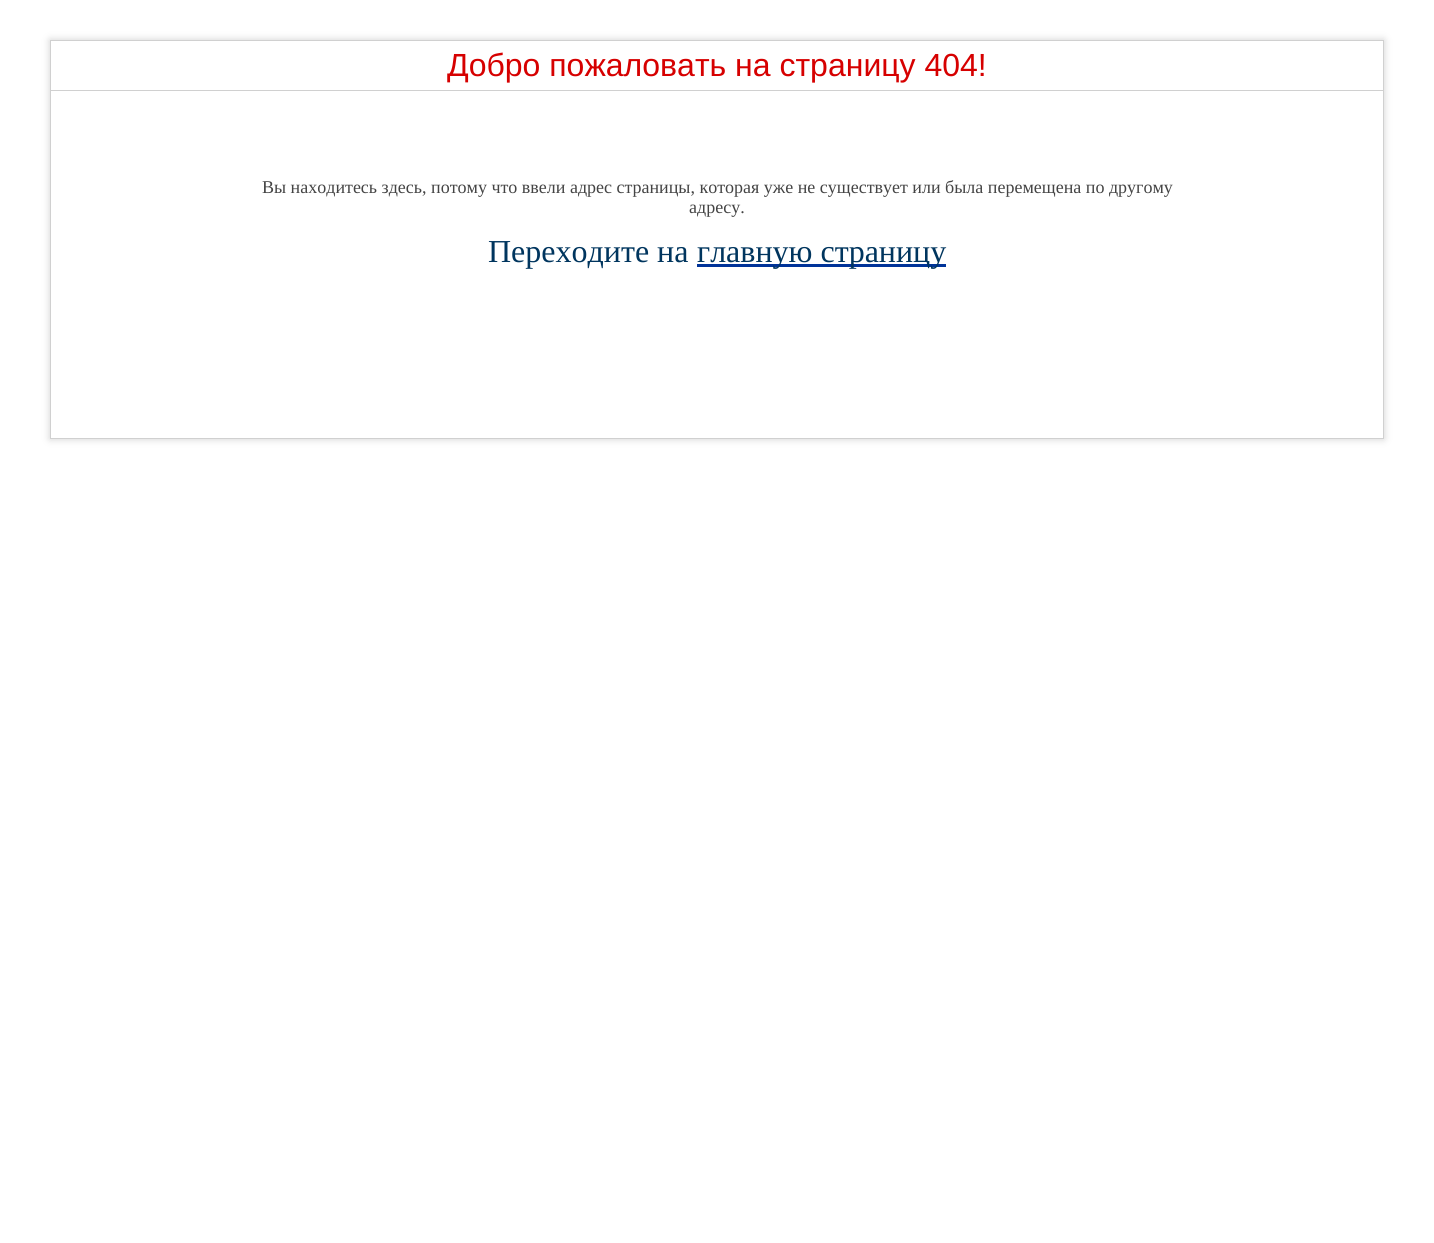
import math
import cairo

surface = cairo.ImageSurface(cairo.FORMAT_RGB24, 1434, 1243)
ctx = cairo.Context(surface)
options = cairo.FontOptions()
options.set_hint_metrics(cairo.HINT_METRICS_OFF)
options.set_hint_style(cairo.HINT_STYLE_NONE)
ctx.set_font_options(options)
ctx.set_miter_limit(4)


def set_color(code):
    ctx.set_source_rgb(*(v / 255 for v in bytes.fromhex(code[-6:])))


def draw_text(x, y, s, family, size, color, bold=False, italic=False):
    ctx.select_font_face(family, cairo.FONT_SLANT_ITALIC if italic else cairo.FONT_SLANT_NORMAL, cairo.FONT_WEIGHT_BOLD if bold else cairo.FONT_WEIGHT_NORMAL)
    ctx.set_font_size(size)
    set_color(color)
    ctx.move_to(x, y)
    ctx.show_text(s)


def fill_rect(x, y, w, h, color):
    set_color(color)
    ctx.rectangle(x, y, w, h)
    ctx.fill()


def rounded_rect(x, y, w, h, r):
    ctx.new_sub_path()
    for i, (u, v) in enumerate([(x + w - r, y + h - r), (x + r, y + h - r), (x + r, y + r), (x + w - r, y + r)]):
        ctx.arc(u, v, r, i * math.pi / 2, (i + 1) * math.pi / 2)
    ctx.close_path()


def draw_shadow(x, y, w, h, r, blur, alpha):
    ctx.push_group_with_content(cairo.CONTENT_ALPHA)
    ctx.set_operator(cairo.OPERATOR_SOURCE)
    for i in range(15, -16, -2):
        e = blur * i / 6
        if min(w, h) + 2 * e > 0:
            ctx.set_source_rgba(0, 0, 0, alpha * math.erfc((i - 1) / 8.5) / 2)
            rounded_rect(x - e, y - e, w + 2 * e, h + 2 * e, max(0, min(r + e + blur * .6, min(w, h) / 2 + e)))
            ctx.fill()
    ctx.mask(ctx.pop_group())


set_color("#ffffff")
ctx.paint()
ctx.save()
ctx.set_fill_rule(cairo.FILL_RULE_EVEN_ODD)
ctx.new_path()
ctx.move_to(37, 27)
ctx.line_to(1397, 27)
ctx.line_to(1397, 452)
ctx.line_to(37, 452)
ctx.close_path()
ctx.move_to(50, 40)
ctx.line_to(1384, 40)
ctx.line_to(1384, 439)
ctx.line_to(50, 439)
ctx.close_path()
ctx.clip()
set_color("#d0d0d0")
draw_shadow(50, 40, 1334, 399, 0, 4, 1)
ctx.restore()
ctx.rectangle(50.5, 40.5, 1333, 398)
set_color("#d0d0d0")
ctx.set_line_width(1)
ctx.stroke()
fill_rect(51, 90, 1332, 1, "#d0d0d0")
draw_text(447, 76, "Добро пожаловать на страницу 404!", "Liberation Sans", 32, "#d60000")
draw_text(262, 193, "Вы находитесь здесь, потому что ввели адрес страницы, которая уже не существует или была перемещена по другому", "Liberation Serif", 18, "#444444")
draw_text(689, 213, "адресу.", "Liberation Serif", 18, "#444444")
draw_text(488, 262, "Переходите на", "Liberation Serif", 32, "#00355e")
fill_rect(697, 264, 249, 3, "#003399")
draw_text(697, 262, "главную страницу", "Liberation Serif", 32, "#00355e")
surface.write_to_png("output.png")
